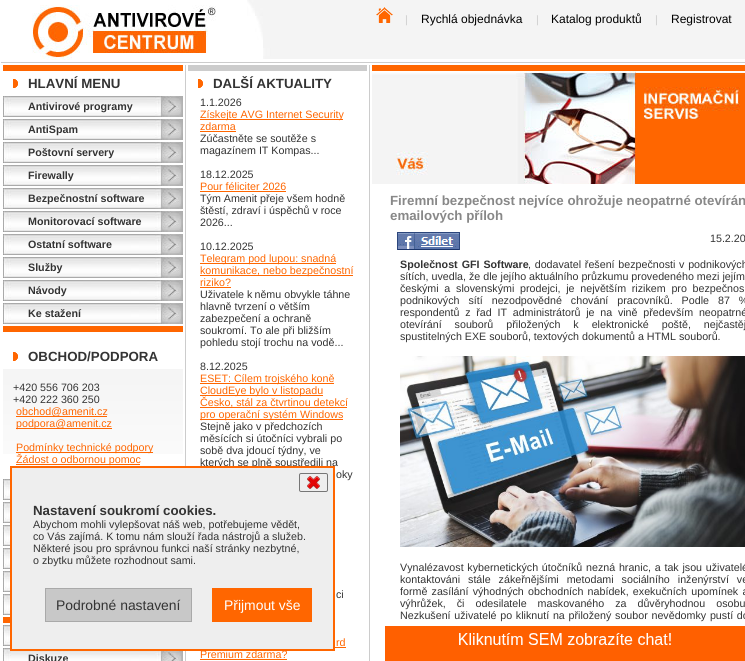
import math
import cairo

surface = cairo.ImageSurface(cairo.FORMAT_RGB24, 745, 661)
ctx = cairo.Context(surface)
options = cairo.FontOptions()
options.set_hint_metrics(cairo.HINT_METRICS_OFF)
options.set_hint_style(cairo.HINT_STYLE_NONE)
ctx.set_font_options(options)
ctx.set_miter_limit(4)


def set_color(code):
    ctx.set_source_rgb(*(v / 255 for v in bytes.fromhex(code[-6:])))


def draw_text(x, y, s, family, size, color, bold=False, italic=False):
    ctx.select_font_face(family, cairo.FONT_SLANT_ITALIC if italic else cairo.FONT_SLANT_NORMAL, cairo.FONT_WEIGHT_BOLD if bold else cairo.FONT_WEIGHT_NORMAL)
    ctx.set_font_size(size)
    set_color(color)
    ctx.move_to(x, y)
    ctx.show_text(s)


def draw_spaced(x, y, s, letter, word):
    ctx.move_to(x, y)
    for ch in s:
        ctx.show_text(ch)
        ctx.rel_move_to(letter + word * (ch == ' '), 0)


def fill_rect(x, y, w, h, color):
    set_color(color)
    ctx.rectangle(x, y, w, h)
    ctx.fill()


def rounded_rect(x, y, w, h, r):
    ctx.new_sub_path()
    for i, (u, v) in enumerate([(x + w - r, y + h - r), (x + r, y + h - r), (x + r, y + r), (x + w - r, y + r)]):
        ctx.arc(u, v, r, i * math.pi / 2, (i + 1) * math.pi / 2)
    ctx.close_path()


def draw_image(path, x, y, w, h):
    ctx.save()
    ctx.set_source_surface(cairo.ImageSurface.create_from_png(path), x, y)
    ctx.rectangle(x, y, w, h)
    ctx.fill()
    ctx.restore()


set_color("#ffffff")
ctx.paint()
draw_image("assets/img1.png", 247, 0, 498, 59)
fill_rect(1, 62, 744, 1, "#cccccc")
draw_image("assets/img2.png", 32, 5, 184, 55)
draw_image("assets/img3.png", 376, 7, 17, 16)
draw_text(405, 23, "|", "Liberation Sans", 10.7, "#cccccc")
draw_text(421, 23, "Rychlá objednávka", "Liberation Sans", 12, "#000000")
draw_text(536, 23, "|", "Liberation Sans", 10.7, "#cccccc")
draw_text(551, 23, "Katalog produktů", "Liberation Sans", 12, "#000000")
draw_text(655, 23, "|", "Liberation Sans", 10.7, "#cccccc")
draw_text(671, 23, "Registrovat", "Liberation Sans", 12, "#000000")
fill_rect(3, 65, 180, 6, "#ff6600")
draw_image("assets/img4.png", 13, 79, 5, 9)
draw_text(28, 88, "HLAVNÍ MENU", "Liberation Sans", 13.3, "#333333", bold=True)
draw_image("assets/img5.png", 3, 96, 180, 21)
draw_text(28, 110, "Antivirové programy", "Liberation Sans", 10.7, "#333333", bold=True)
draw_image("assets/img5.png", 3, 119, 180, 21)
draw_text(28, 133, "AntiSpam", "Liberation Sans", 10.7, "#333333", bold=True)
draw_image("assets/img5.png", 3, 142, 180, 21)
draw_text(28, 156, "Poštovní servery", "Liberation Sans", 10.7, "#333333", bold=True)
draw_image("assets/img5.png", 3, 165, 180, 21)
draw_text(28, 179, "Firewally", "Liberation Sans", 10.7, "#333333", bold=True)
draw_image("assets/img5.png", 3, 188, 180, 21)
draw_text(28, 202, "Bezpečnostní software", "Liberation Sans", 10.7, "#333333", bold=True)
draw_image("assets/img5.png", 3, 211, 180, 21)
draw_text(28, 225, "Monitorovací software", "Liberation Sans", 10.7, "#333333", bold=True)
draw_image("assets/img5.png", 3, 234, 180, 21)
draw_text(28, 248, "Ostatní software", "Liberation Sans", 10.7, "#333333", bold=True)
draw_image("assets/img5.png", 3, 257, 180, 21)
draw_text(28, 271, "Služby", "Liberation Sans", 10.7, "#333333", bold=True)
draw_image("assets/img5.png", 3, 280, 180, 21)
draw_text(28, 294, "Návody", "Liberation Sans", 10.7, "#333333", bold=True)
draw_image("assets/img5.png", 3, 303, 180, 21)
draw_text(28, 317, "Ke stažení", "Liberation Sans", 10.7, "#333333", bold=True)
fill_rect(3, 326, 180, 6, "#ff6600")
draw_image("assets/img4.png", 13, 352, 5, 9)
draw_text(28, 361, "OBCHOD/PODPORA", "Liberation Sans", 13.3, "#333333", bold=True)
draw_image("assets/img6.png", 3, 369, 180, 85)
draw_text(13, 391, "+420 556 706 203", "Liberation Sans", 10.7, "#333333")
draw_text(13, 403, "+420 222 360 250", "Liberation Sans", 10.7, "#333333")
fill_rect(16, 416, 91, 1, "#ff6600")
draw_text(16, 415, "obchod@amenit.cz", "Liberation Sans", 10.7, "#ff6600")
fill_rect(16, 428, 96, 1, "#ff6600")
draw_text(16, 427, "podpora@amenit.cz", "Liberation Sans", 10.7, "#ff6600")
fill_rect(16, 452, 137, 1, "#ff6600")
draw_text(16, 451, "Podmínky technické podpory", "Liberation Sans", 10.7, "#ff6600")
fill_rect(16, 464, 124, 1, "#ff6600")
draw_text(16, 463, "Žádost o odbornou pomoc", "Liberation Sans", 10.7, "#ff6600")
draw_image("assets/img7.png", 3, 479, 7, 21)
draw_image("assets/img7.png", 3, 502, 7, 21)
draw_image("assets/img7.png", 3, 525, 7, 21)
draw_image("assets/img7.png", 3, 548, 7, 21)
draw_image("assets/img7.png", 3, 571, 7, 21)
draw_image("assets/img7.png", 3, 594, 7, 21)
fill_rect(3, 617, 7, 6, "#ff6600")
draw_image("assets/img7.png", 3, 625, 7, 21)
draw_image("assets/img8.png", 3, 648, 180, 13)
draw_text(28, 662, "Diskuze", "Liberation Sans", 10.7, "#333333", bold=True)
fill_rect(185, 65, 1, 596, "#cccccc")
fill_rect(369, 65, 1, 596, "#cccccc")
fill_rect(188, 65, 179, 6, "#cccccc")
draw_image("assets/img4.png", 198, 79, 5, 9)
draw_text(213, 88, "DALŠÍ AKTUALITY", "Liberation Sans", 13.3, "#333333", bold=True)
draw_text(200, 106, "1.1.2026", "Liberation Sans", 10.7, "#333333")
fill_rect(200, 119, 143, 1, "#ff6600")
draw_text(200, 118, "Získejte AVG Internet Security", "Liberation Sans", 10.7, "#ff6600")
draw_text(200, 130, "zdarma", "Liberation Sans", 10.7, "#ff6600")
fill_rect(200, 131, 36, 1, "#ff6600")
draw_text(200, 142, "Zúčastněte se soutěže s", "Liberation Sans", 10.7, "#333333")
draw_text(200, 154, "magazínem IT Kompas...", "Liberation Sans", 10.7, "#333333")
draw_text(200, 178, "18.12.2025", "Liberation Sans", 10.7, "#333333")
draw_text(200, 190, "Pour féliciter 2026", "Liberation Sans", 10.7, "#ff6600")
fill_rect(200, 191, 86, 1, "#ff6600")
draw_text(200, 202, "Tým Amenit přeje všem hodně", "Liberation Sans", 10.7, "#333333")
draw_text(200, 214, "štěstí, zdraví i úspěchů v roce", "Liberation Sans", 10.7, "#333333")
draw_text(200, 226, "2026...", "Liberation Sans", 10.7, "#333333")
draw_text(200, 250, "10.12.2025", "Liberation Sans", 10.7, "#333333")
fill_rect(200, 263, 136, 1, "#ff6600")
draw_text(200, 262, "Telegram pod lupou: snadná", "Liberation Sans", 10.7, "#ff6600")
fill_rect(200, 275, 153, 1, "#ff6600")
draw_text(200, 274, "komunikace, nebo bezpečnostní", "Liberation Sans", 10.7, "#ff6600")
draw_text(200, 286, "riziko?", "Liberation Sans", 10.7, "#ff6600")
fill_rect(200, 287, 31, 1, "#ff6600")
draw_text(200, 298, "Uživatele k němu obvykle táhne", "Liberation Sans", 10.7, "#333333")
draw_text(200, 310, "hlavně tvrzení o větším", "Liberation Sans", 10.7, "#333333")
draw_text(200, 322, "zabezpečení a ochraně", "Liberation Sans", 10.7, "#333333")
draw_text(200, 334, "soukromí. To ale při bližším", "Liberation Sans", 10.7, "#333333")
draw_text(200, 346, "pohledu stojí trochu na vodě...", "Liberation Sans", 10.7, "#333333")
draw_text(200, 370, "8.12.2025", "Liberation Sans", 10.7, "#333333")
fill_rect(200, 383, 134, 1, "#ff6600")
draw_text(200, 382, "ESET: Cílem trojského koně", "Liberation Sans", 10.7, "#ff6600")
fill_rect(200, 395, 123, 1, "#ff6600")
draw_text(200, 394, "CloudEye bylo v listopadu", "Liberation Sans", 10.7, "#ff6600")
fill_rect(200, 407, 147, 1, "#ff6600")
draw_text(200, 406, "Česko, stál za čtvrtinou detekcí", "Liberation Sans", 10.7, "#ff6600")
fill_rect(200, 419, 143, 1, "#ff6600")
draw_text(200, 418, "pro operační systém Windows", "Liberation Sans", 10.7, "#ff6600")
draw_text(200, 430, "Stejně jako v předchozích", "Liberation Sans", 10.7, "#333333")
draw_text(200, 442, "měsících si útočníci vybrali po", "Liberation Sans", 10.7, "#333333")
draw_text(200, 454, "sobě dva jdoucí týdny, ve", "Liberation Sans", 10.7, "#333333")
draw_text(200, 466, "kterých se plně soustředili na", "Liberation Sans", 10.7, "#333333")
draw_text(336, 478, "oky", "Liberation Sans", 10.7, "#333333")
draw_text(336, 598, "ci", "Liberation Sans", 10.7, "#333333")
draw_text(336, 646, "rd", "Liberation Sans", 10.7, "#ff6600")
fill_rect(335, 647, 11, 1, "#ff6600")
draw_text(200, 658, "Premium zdarma?", "Liberation Sans", 10.7, "#ff6600")
fill_rect(200, 659, 87, 1, "#ff6600")
fill_rect(372, 65, 373, 6, "#ff6600")
draw_image("assets/img9.png", 372, 71, 373, 113)
draw_text(390, 205, "Firemní bezpečnost nejvíce ohrožuje neopatrné otevírán", "Liberation Sans", 13.3, "#888888", bold=True)
draw_text(390, 220, "emailových příloh", "Liberation Sans", 13.3, "#888888", bold=True)
draw_image("assets/img10.png", 397, 232, 63, 18)
draw_text(710, 242, "15.2.20", "Liberation Sans", 10.7, "#333333")
ctx.select_font_face("Liberation Sans", cairo.FONT_SLANT_NORMAL, cairo.FONT_WEIGHT_BOLD)
draw_spaced(400, 268, "Společnost GFI Software", 0, 1)
ctx.select_font_face("Liberation Sans")
draw_spaced(528, 268, ", dodavatel řešení bezpečnosti v podnikových", 0, 0.75)
draw_text(400, 280, "sítích, uvedla, že dle jejího aktuálního průzkumu provedeného mezi jejím", "Liberation Sans", 10.7, "#333333")
draw_spaced(400, 292, "českými a slovenskými prodejci, je největším rizikem pro bezpečnos", 0, 2.75)
draw_spaced(400, 304, "podnikových sítí nezodpovědné chování pracovníků. Podle 87 %", 0, 6)
draw_spaced(400, 316, "respondentů z řad IT administrátorů je na vině především neopatrné", 0, 2.75)
draw_spaced(400, 328, "otevírání souborů přiložených k elektronické poště, nejčastěj", 0, 10)
draw_text(400, 340, "spustitelných EXE souborů, textových dokumentů a HTML souborů.", "Liberation Sans", 10.7, "#333333")
draw_image("assets/img11.png", 400, 356, 345, 191)
draw_spaced(400, 571, "Vynalézavost kybernetických útočníků nezná hranic, a tak jsou uživatelé", 0, 0.75)
draw_spaced(400, 583, "kontaktováni stále zákeřnějšími metodami sociálního inženýrství ve", 0, 5)
draw_spaced(400, 595, "formě zasílání výhodných obchodních nabídek, exekučních upomínek a", 0, 1.25)
draw_spaced(400, 607, "výhrůžek, či odesilatele maskovaného za důvěryhodnou osobu", 0, 8)
draw_spaced(400, 619, "Nezkušení uživatelé po kliknutí na přiložený soubor nevědomky pustí do", 0, 0.75)
set_color("#eeeeee")
ctx.rectangle(11, 467, 323, 183)
ctx.fill_preserve()
set_color("#ff6600")
ctx.stroke()
rounded_rect(299.5, 473.5, 28, 18, 1.5)
set_color("#767676")
ctx.set_line_width(1)
ctx.stroke()
draw_image("assets/img12.png", 307, 476, 13, 13)
draw_text(33, 515, "Nastavení soukromí cookies.", "Liberation Sans", 13.3, "#333333", bold=True)
draw_text(33, 528, "Abychom mohli vylepšovat náš web, potřebujeme vědět,", "Liberation Sans", 10.7, "#333333")
draw_text(33, 540, "co Vás zajímá. K tomu nám slouží řada nástrojů a služeb.", "Liberation Sans", 10.7, "#333333")
draw_text(33, 552, "Některé jsou pro správnou funkci naší stránky nezbytné,", "Liberation Sans", 10.7, "#333333")
draw_text(33, 564, "o zbytku můžete rozhodnout sami.", "Liberation Sans", 10.7, "#333333")
set_color("#c8c8c8")
ctx.rectangle(45.5, 588.5, 146, 33)
ctx.fill_preserve()
set_color("#a9a9a9")
ctx.stroke()
draw_text(56, 610, "Podrobné nastavení", "Liberation Sans", 13.9, "#333333")
fill_rect(212, 588, 100, 34, "#ff6600")
draw_text(224, 610, "Přijmout vše", "Liberation Sans", 13.9, "#ffffff")
draw_image("assets/img13.png", 385, 626, 360, 35)
surface.write_to_png("output.png")
